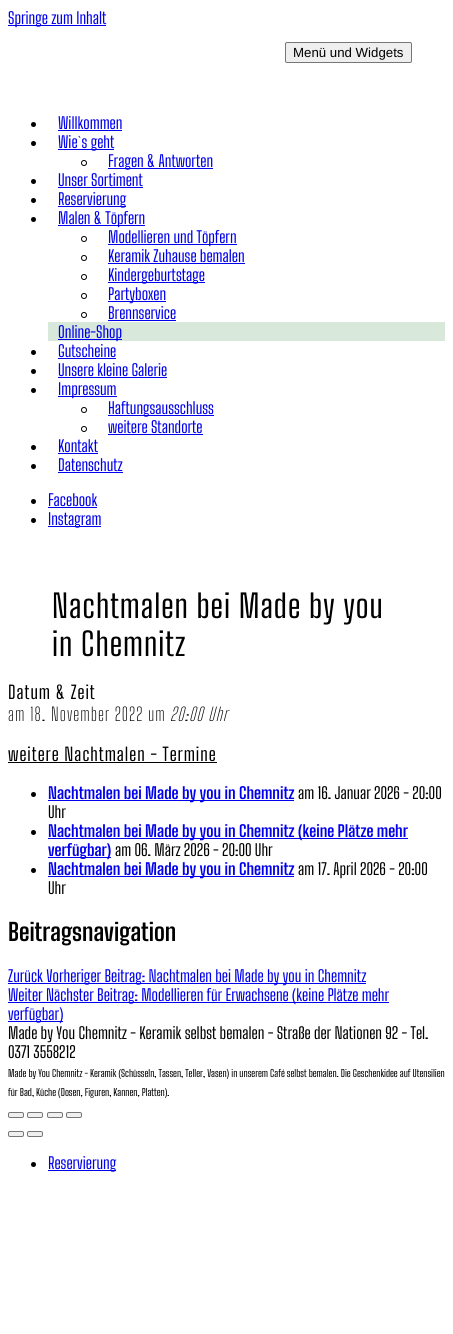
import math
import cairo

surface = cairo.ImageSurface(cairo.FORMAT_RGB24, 453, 1334)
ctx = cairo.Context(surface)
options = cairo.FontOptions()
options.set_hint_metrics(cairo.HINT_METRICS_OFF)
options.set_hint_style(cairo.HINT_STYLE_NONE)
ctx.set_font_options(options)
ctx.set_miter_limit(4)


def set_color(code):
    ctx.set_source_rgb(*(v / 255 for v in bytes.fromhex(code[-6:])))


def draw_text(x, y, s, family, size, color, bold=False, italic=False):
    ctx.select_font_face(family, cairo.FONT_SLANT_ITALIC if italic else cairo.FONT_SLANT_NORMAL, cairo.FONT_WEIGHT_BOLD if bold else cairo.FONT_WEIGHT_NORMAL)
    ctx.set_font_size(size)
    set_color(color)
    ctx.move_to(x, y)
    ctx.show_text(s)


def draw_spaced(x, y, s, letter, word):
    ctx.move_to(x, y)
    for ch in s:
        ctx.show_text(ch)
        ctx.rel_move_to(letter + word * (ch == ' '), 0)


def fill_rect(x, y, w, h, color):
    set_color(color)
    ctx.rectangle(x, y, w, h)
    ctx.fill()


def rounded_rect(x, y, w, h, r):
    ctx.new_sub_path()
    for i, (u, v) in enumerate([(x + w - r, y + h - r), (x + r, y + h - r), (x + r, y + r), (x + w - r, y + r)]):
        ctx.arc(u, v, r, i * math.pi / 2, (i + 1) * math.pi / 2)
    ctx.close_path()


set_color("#ffffff")
ctx.paint()
fill_rect(8, 25, 98, 1, "#0000ee")
draw_text(8, 24, "Springe zum Inhalt", "Big Shoulders Text", 16, "#0000ee")
set_color("#efefef")
rounded_rect(285.5, 42.5, 126, 20, 1.5)
ctx.fill_preserve()
set_color("#767676")
ctx.set_line_width(1)
ctx.stroke()
draw_text(293, 57, "Menü und Widgets", "Liberation Sans", 13.25, "#000000")
ctx.new_path()
ctx.arc(33.5, 124.5, 2.5, 0, 2 * math.pi)
ctx.fill()
draw_text(58, 129, "Willkommen", "Big Shoulders Text", 16, "#0000ee")
fill_rect(58, 130, 64, 1, "#0000ee")
set_color("#000000")
ctx.new_path()
ctx.arc(33.5, 143.5, 2.5, 0, 2 * math.pi)
ctx.fill()
fill_rect(58, 149, 56, 1, "#0000ee")
draw_text(58, 148, "Wie`s geht", "Big Shoulders Text", 16, "#0000ee")
ctx.new_path()
ctx.arc(84, 163, 2.5, 0, 2 * math.pi)
set_color("#000000")
ctx.stroke()
fill_rect(108, 168, 105, 1, "#0000ee")
draw_text(108, 167, "Fragen & Antworten", "Big Shoulders Text", 16, "#0000ee")
set_color("#000000")
ctx.new_path()
ctx.arc(33.5, 181.5, 2.5, 0, 2 * math.pi)
ctx.fill()
draw_text(58, 186, "Unser Sortiment", "Big Shoulders Text", 16, "#0000ee")
fill_rect(58, 187, 85, 1, "#0000ee")
set_color("#000000")
ctx.new_path()
ctx.arc(33.5, 200.5, 2.5, 0, 2 * math.pi)
ctx.fill()
fill_rect(58, 206, 68, 1, "#0000ee")
draw_text(58, 205, "Reservierung", "Big Shoulders Text", 16, "#0000ee")
set_color("#000000")
ctx.new_path()
ctx.arc(33.5, 219.5, 2.5, 0, 2 * math.pi)
ctx.fill()
fill_rect(58, 225, 87, 1, "#0000ee")
draw_text(58, 224, "Malen & Töpfern", "Big Shoulders Text", 16, "#0000ee")
ctx.new_path()
ctx.arc(84, 239, 2.5, 0, 2 * math.pi)
set_color("#000000")
ctx.stroke()
fill_rect(108, 244, 129, 1, "#0000ee")
draw_text(108, 243, "Modellieren und Töpfern", "Big Shoulders Text", 16, "#0000ee")
ctx.new_path()
ctx.arc(84, 258, 2.5, 0, 2 * math.pi)
set_color("#000000")
ctx.stroke()
draw_text(108, 262, "Keramik Zuhause bemalen", "Big Shoulders Text", 16, "#0000ee")
fill_rect(108, 263, 137, 1, "#0000ee")
ctx.new_path()
ctx.arc(84, 277, 2.5, 0, 2 * math.pi)
set_color("#000000")
ctx.stroke()
fill_rect(108, 282, 97, 1, "#0000ee")
draw_text(108, 281, "Kindergeburtstage", "Big Shoulders Text", 16, "#0000ee")
ctx.new_path()
ctx.arc(84, 296, 2.5, 0, 2 * math.pi)
set_color("#000000")
ctx.stroke()
fill_rect(108, 301, 58, 1, "#0000ee")
draw_text(108, 300, "Partyboxen", "Big Shoulders Text", 16, "#0000ee")
ctx.new_path()
ctx.arc(84, 315, 2.5, 0, 2 * math.pi)
set_color("#000000")
ctx.stroke()
draw_text(108, 319, "Brennservice", "Big Shoulders Text", 16, "#0000ee")
fill_rect(108, 320, 68, 1, "#0000ee")
fill_rect(48, 322, 397, 19, "#d8e8db")
fill_rect(58, 339, 64, 1, "#0000ee")
draw_text(58, 338, "Online-Shop", "Big Shoulders Text", 16, "#0000ee")
set_color("#000000")
ctx.new_path()
ctx.arc(33.5, 352.5, 2.5, 0, 2 * math.pi)
ctx.fill()
draw_text(58, 357, "Gutscheine", "Big Shoulders Text", 16, "#0000ee")
fill_rect(58, 358, 58, 1, "#0000ee")
set_color("#000000")
ctx.new_path()
ctx.arc(33.5, 371.5, 2.5, 0, 2 * math.pi)
ctx.fill()
draw_text(58, 376, "Unsere kleine Galerie", "Big Shoulders Text", 16, "#0000ee")
fill_rect(58, 377, 109, 1, "#0000ee")
set_color("#000000")
ctx.new_path()
ctx.arc(33.5, 390.5, 2.5, 0, 2 * math.pi)
ctx.fill()
fill_rect(58, 396, 59, 1, "#0000ee")
draw_text(58, 395, "Impressum", "Big Shoulders Text", 16, "#0000ee")
ctx.new_path()
ctx.arc(84, 410, 2.5, 0, 2 * math.pi)
set_color("#000000")
ctx.stroke()
fill_rect(108, 415, 106, 1, "#0000ee")
draw_text(108, 414, "Haftungsausschluss", "Big Shoulders Text", 16, "#0000ee")
ctx.new_path()
ctx.arc(84, 429, 2.5, 0, 2 * math.pi)
set_color("#000000")
ctx.stroke()
draw_text(108, 433, "weitere Standorte", "Big Shoulders Text", 16, "#0000ee")
fill_rect(108, 434, 95, 1, "#0000ee")
set_color("#000000")
ctx.new_path()
ctx.arc(33.5, 447.5, 2.5, 0, 2 * math.pi)
ctx.fill()
draw_text(58, 452, "Kontakt", "Big Shoulders Text", 16, "#0000ee")
fill_rect(58, 453, 40, 1, "#0000ee")
set_color("#000000")
ctx.new_path()
ctx.arc(33.5, 466.5, 2.5, 0, 2 * math.pi)
ctx.fill()
draw_text(58, 471, "Datenschutz", "Big Shoulders Text", 16, "#0000ee")
fill_rect(58, 472, 65, 1, "#0000ee")
set_color("#000000")
ctx.new_path()
ctx.arc(33.5, 501.5, 2.5, 0, 2 * math.pi)
ctx.fill()
draw_text(48, 506, "Facebook", "Big Shoulders Text", 16, "#0000ee")
fill_rect(48, 507, 49, 1, "#0000ee")
set_color("#000000")
ctx.new_path()
ctx.arc(33.5, 520.5, 2.5, 0, 2 * math.pi)
ctx.fill()
fill_rect(48, 526, 53, 1, "#0000ee")
draw_text(48, 525, "Instagram", "Big Shoulders Text", 16, "#0000ee")
ctx.set_font_size(32)
set_color("#000000")
draw_spaced(52, 618, "Nachtmalen bei Made by you", 1, 0)
draw_spaced(52, 656, "in Chemnitz", 1, 0)
ctx.set_font_size(18)
draw_spaced(8, 699, "Datum & Zeit", 1, 0)
ctx.select_font_face("Big Shoulders Text Thin")
draw_spaced(8, 721, "am 18. November 2022 um", 1, 0)
ctx.select_font_face("Big Shoulders Text Thin", cairo.FONT_SLANT_ITALIC)
draw_spaced(170, 721, "20:00 Uhr", 1, 0)
ctx.select_font_face("Big Shoulders Text")
draw_spaced(8, 761, "weitere Nachtmalen - Termine", 1, 0)
fill_rect(8, 762, 209, 1, "#000000")
ctx.new_path()
ctx.arc(33.5, 794.5, 2.5, 0, 2 * math.pi)
ctx.fill()
fill_rect(48, 800, 246, 1, "#0000ee")
draw_text(48, 799, "Nachtmalen bei Made by you in Chemnitz", "Big Shoulders Text", 16, "#0000ee", bold=True)
draw_text(298, 799, "am 16. Januar 2026 - 20:00", "Big Shoulders Text", 16, "#000000")
draw_text(48, 818, "Uhr", "Big Shoulders Text", 16, "#000000")
ctx.new_path()
ctx.arc(33.5, 832.5, 2.5, 0, 2 * math.pi)
ctx.fill()
fill_rect(48, 838, 360, 1, "#0000ee")
draw_text(48, 837, "Nachtmalen bei Made by you in Chemnitz (keine Plätze mehr", "Big Shoulders Text", 16, "#0000ee", bold=True)
fill_rect(48, 857, 63, 1, "#0000ee")
draw_text(48, 856, "verfügbar)", "Big Shoulders Text", 16, "#0000ee", bold=True)
draw_text(115, 856, "am 06. März 2026 - 20:00 Uhr", "Big Shoulders Text", 16, "#000000")
ctx.new_path()
ctx.arc(33.5, 870.5, 2.5, 0, 2 * math.pi)
ctx.fill()
fill_rect(48, 876, 246, 1, "#0000ee")
draw_text(48, 875, "Nachtmalen bei Made by you in Chemnitz", "Big Shoulders Text", 16, "#0000ee", bold=True)
draw_text(298, 875, "am 17. April 2026 - 20:00", "Big Shoulders Text", 16, "#000000")
draw_text(48, 894, "Uhr", "Big Shoulders Text", 16, "#000000")
draw_text(8, 941, "Beitragsnavigation", "Big Shoulders Text", 24, "#000000", bold=True)
fill_rect(8, 983, 358, 1, "#0000ee")
draw_text(8, 982, "Zurück Vorheriger Beitrag: Nachtmalen bei Made by you in Chemnitz", "Big Shoulders Text", 16, "#0000ee")
fill_rect(8, 1002, 381, 1, "#0000ee")
draw_text(8, 1001, "Weiter Nächster Beitrag: Modellieren für Erwachsene (keine Plätze mehr", "Big Shoulders Text", 16, "#0000ee")
fill_rect(8, 1021, 55, 1, "#0000ee")
draw_text(8, 1020, "verfügbar)", "Big Shoulders Text", 16, "#0000ee")
draw_text(8, 1039, "Made by You Chemnitz - Keramik selbst bemalen - Straße der Nationen 92 - Tel.", "Big Shoulders Text", 16, "#000000")
draw_text(8, 1058, "0371 3558212", "Big Shoulders Text", 16, "#000000")
draw_text(8, 1077, "Made by You Chemnitz - Keramik (Schüsseln, Tassen, Teller, Vasen) in unserem Café selbst bemalen. Die Geschenkidee auf Utensilien", "Big Shoulders Text", 10, "#000000")
draw_text(8, 1096, "für Bad, Küche (Dosen, Figuren, Kannen, Platten).", "Big Shoulders Text", 10, "#000000")
set_color("#efefef")
rounded_rect(8.5, 1112.5, 15, 5, 1.5)
ctx.fill_preserve()
set_color("#767676")
ctx.stroke()
set_color("#efefef")
rounded_rect(27.5, 1112.5, 15, 5, 1.5)
ctx.fill_preserve()
set_color("#767676")
ctx.stroke()
set_color("#efefef")
rounded_rect(47.5, 1112.5, 15, 5, 1.5)
ctx.fill_preserve()
set_color("#767676")
ctx.stroke()
set_color("#efefef")
rounded_rect(66.5, 1112.5, 15, 5, 1.5)
ctx.fill_preserve()
set_color("#767676")
ctx.stroke()
set_color("#efefef")
rounded_rect(8.5, 1131.5, 15, 5, 1.5)
ctx.fill_preserve()
set_color("#767676")
ctx.stroke()
set_color("#efefef")
rounded_rect(27.5, 1131.5, 15, 5, 1.5)
ctx.fill_preserve()
set_color("#767676")
ctx.stroke()
set_color("#000000")
ctx.arc(33.5, 1164.5, 2.5, 0, 2 * math.pi)
ctx.fill()
fill_rect(48, 1170, 68, 1, "#0000ee")
draw_text(48, 1169, "Reservierung", "Big Shoulders Text", 16, "#0000ee")
surface.write_to_png("output.png")
